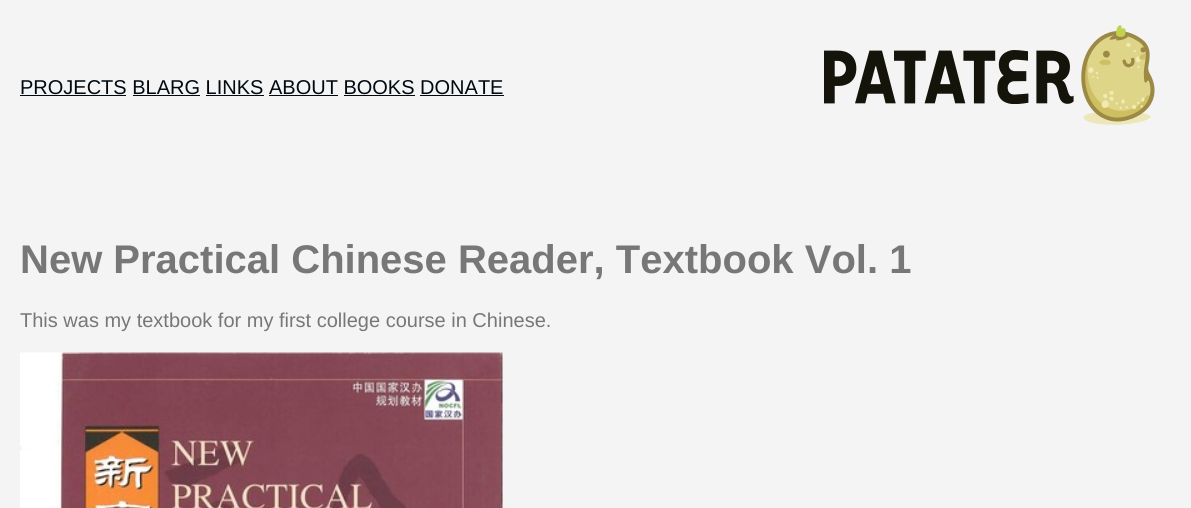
import math
import cairo

surface = cairo.ImageSurface(cairo.FORMAT_RGB24, 1191, 508)
ctx = cairo.Context(surface)
options = cairo.FontOptions()
options.set_hint_metrics(cairo.HINT_METRICS_OFF)
options.set_hint_style(cairo.HINT_STYLE_NONE)
ctx.set_font_options(options)
ctx.set_miter_limit(4)


def set_color(code):
    ctx.set_source_rgb(*(v / 255 for v in bytes.fromhex(code[-6:])))


def draw_text(x, y, s, family, size, color, bold=False, italic=False):
    ctx.select_font_face(family, cairo.FONT_SLANT_ITALIC if italic else cairo.FONT_SLANT_NORMAL, cairo.FONT_WEIGHT_BOLD if bold else cairo.FONT_WEIGHT_NORMAL)
    ctx.set_font_size(size)
    set_color(color)
    ctx.move_to(x, y)
    ctx.show_text(s)


def fill_rect(x, y, w, h, color):
    set_color(color)
    ctx.rectangle(x, y, w, h)
    ctx.fill()


def draw_image(path, x, y, w, h):
    ctx.save()
    ctx.set_source_surface(cairo.ImageSurface.create_from_png(path), x, y)
    ctx.rectangle(x, y, w, h)
    ctx.fill()
    ctx.restore()


set_color("#f4f4f4")
ctx.paint()
draw_text(20, 94, "PROJECTS BLARG LINKS ABOUT BOOKS DONATE", "Liberation Sans", 20, "#000910")
fill_rect(20, 95, 106, 1, "#000910")
fill_rect(133, 95, 67, 1, "#000910")
fill_rect(206, 95, 58, 1, "#000910")
fill_rect(269, 95, 69, 1, "#000910")
fill_rect(344, 95, 71, 1, "#000910")
fill_rect(420, 95, 84, 1, "#000910")
draw_image("assets/img1.png", 824, 50, 250, 54)
draw_image("assets/img2.png", 1081, 25, 74, 100)
draw_text(20, 273, "New Practical Chinese Reader, Textbook Vol. 1", "Liberation Sans", 40, "#777777", bold=True)
draw_text(20, 327, "This was my textbook for my first college course in Chinese.", "Liberation Sans", 20, "#777777")
draw_image("assets/img3.png", 20, 352, 483, 156)
surface.write_to_png("output.png")
